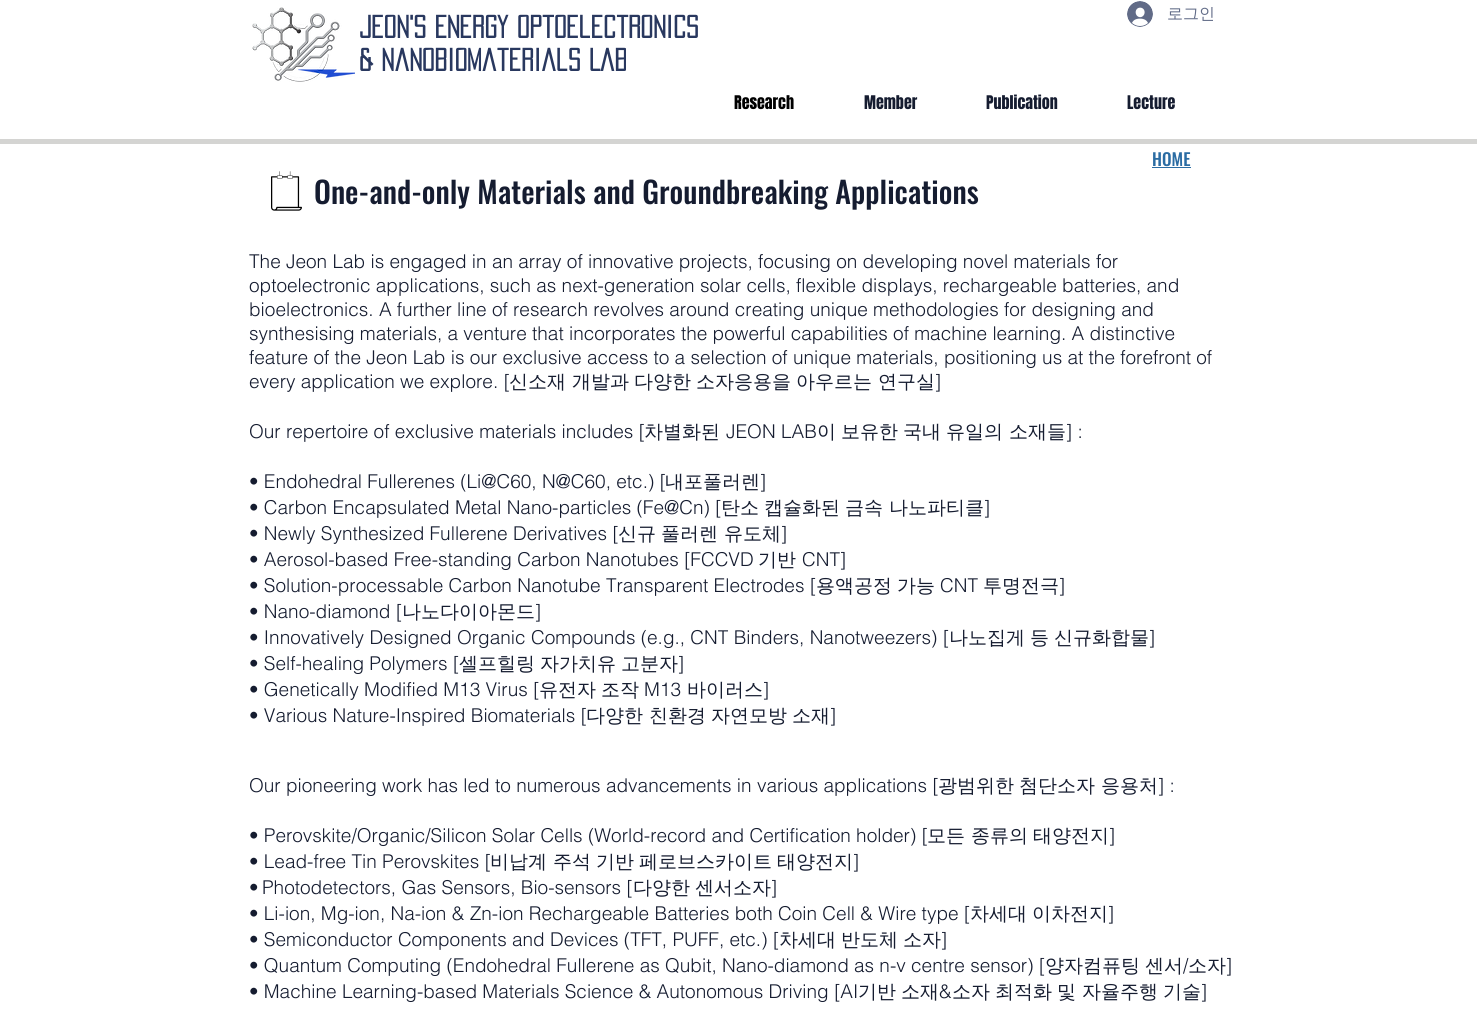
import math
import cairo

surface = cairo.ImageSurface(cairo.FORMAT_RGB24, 1477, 1032)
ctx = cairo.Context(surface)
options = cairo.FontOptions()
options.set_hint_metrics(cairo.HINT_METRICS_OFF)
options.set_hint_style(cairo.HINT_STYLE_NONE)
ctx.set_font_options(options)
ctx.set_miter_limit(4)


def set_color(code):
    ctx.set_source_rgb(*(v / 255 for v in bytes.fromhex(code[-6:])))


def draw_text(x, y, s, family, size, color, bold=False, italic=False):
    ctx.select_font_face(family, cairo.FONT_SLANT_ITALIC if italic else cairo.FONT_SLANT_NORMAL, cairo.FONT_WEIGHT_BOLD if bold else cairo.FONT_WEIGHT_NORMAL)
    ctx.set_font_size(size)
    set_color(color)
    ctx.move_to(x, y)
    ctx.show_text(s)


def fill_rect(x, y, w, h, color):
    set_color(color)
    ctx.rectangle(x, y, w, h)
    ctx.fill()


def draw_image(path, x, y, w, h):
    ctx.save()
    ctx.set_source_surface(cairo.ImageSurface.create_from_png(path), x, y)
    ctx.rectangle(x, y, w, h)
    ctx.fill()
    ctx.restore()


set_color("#ffffff")
ctx.paint()
draw_image("assets/img1.png", 252, 7, 103, 75)
draw_text(359, 38, "Jeon's Energy OptoelectRonics", "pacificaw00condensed", 28, "#29385f", bold=True)
draw_text(359, 71, "& Nanobiomaterials Lab", "pacificaw00condensed", 28, "#29385f", bold=True)
draw_image("assets/img2.png", 1127, 1, 26, 26)
draw_text(1167, 19, "로그인", "WenQuanYi Zen Hei Medium", 16, "#616b87")
draw_text(734, 109, "Research", "Anton", 16, "#000000")
draw_text(864, 109, "Member", "Anton", 16, "#151c30")
draw_text(986, 109, "Publication", "Anton", 16, "#151c30")
draw_text(1127, 109, "Lecture", "Anton", 16, "#151c30")
fill_rect(0, 139, 1477, 5, "#d4d4d2")
draw_text(1152, 166, "HOME", "Oswald Medium", 17, "#2b6ca3")
fill_rect(1152, 167, 39, 1, "#2b6ca3")
draw_image("assets/img3.png", 271, 171, 31, 40)
draw_text(314, 204, "One-and-only Materials and Groundbreaking Applications", "Oswald Medium", 30, "#151c30")
draw_text(249, 268, "The Jeon Lab is engaged in an array of innovative projects, focusing on developing novel materials for", "helvetica Light", 19, "#151c30")
draw_text(249, 292, "optoelectronic applications, such as next-generation solar cells, flexible displays, rechargeable batteries, and", "helvetica Light", 19, "#151c30")
draw_text(249, 316, "bioelectronics. A further line of research revolves around creating unique methodologies for designing and", "helvetica Light", 19, "#151c30")
draw_text(249, 340, "synthesising materials, a venture that incorporates the powerful capabilities of machine learning. A distinctive", "helvetica Light", 19, "#151c30")
draw_text(249, 364, "feature of the Jeon Lab is our exclusive access to a selection of unique materials, positioning us at the forefront of", "helvetica Light", 19, "#151c30")
draw_text(249, 388, "every application we explore. [", "helvetica Light", 19, "#151c30")
draw_text(509, 388, "신소재", "WenQuanYi Zen Hei Medium", 19, "#151c30")
draw_text(572, 388, "개발과", "WenQuanYi Zen Hei Medium", 19, "#151c30")
draw_text(634, 388, "다양한", "WenQuanYi Zen Hei Medium", 19, "#151c30")
draw_text(696, 388, "소자응용을", "WenQuanYi Zen Hei Medium", 19, "#151c30")
draw_text(796, 388, "아우르는", "WenQuanYi Zen Hei Medium", 19, "#151c30")
draw_text(878, 388, "연구실", "WenQuanYi Zen Hei Medium", 19, "#151c30")
draw_text(935, 388, "]", "helvetica Light", 19, "#151c30")
draw_text(249, 438, "Our repertoire of exclusive materials includes [", "helvetica Light", 19, "#151c30")
draw_text(644, 438, "차별화된", "WenQuanYi Zen Hei Medium", 19, "#151c30")
draw_text(726, 438, "JEON LAB", "helvetica Light", 19, "#151c30")
draw_text(817, 438, "이", "WenQuanYi Zen Hei Medium", 19, "#151c30")
draw_text(841, 438, "보유한", "WenQuanYi Zen Hei Medium", 19, "#151c30")
draw_text(903, 438, "국내", "WenQuanYi Zen Hei Medium", 19, "#151c30")
draw_text(946, 438, "유일의", "WenQuanYi Zen Hei Medium", 19, "#151c30")
draw_text(1009, 438, "소재들", "WenQuanYi Zen Hei Medium", 19, "#151c30")
draw_text(1066, 438, "] :", "helvetica Light", 19, "#151c30")
draw_text(249, 488, "• Endohedral Fullerenes (Li@C60, N@C60, etc.) [", "helvetica Light", 19, "#151c30")
draw_text(665, 488, "내포풀러렌", "WenQuanYi Zen Hei Medium", 19, "#151c30")
draw_text(760, 488, "]", "helvetica Light", 19, "#151c30")
draw_text(249, 514, "• Carbon Encapsulated Metal Nano-particles (Fe@Cn) [", "helvetica Light", 19, "#151c30")
draw_text(721, 514, "탄소", "WenQuanYi Zen Hei Medium", 19, "#151c30")
draw_text(764, 514, "캡슐화된", "WenQuanYi Zen Hei Medium", 19, "#151c30")
draw_text(845, 514, "금속", "WenQuanYi Zen Hei Medium", 19, "#151c30")
draw_text(889, 514, "나노파티클", "WenQuanYi Zen Hei Medium", 19, "#151c30")
draw_text(984, 514, "]", "helvetica Light", 19, "#151c30")
draw_text(249, 540, "• Newly Synthesized Fullerene Derivatives [", "helvetica Light", 19, "#151c30")
draw_text(618, 540, "신규", "WenQuanYi Zen Hei Medium", 19, "#151c30")
draw_text(661, 540, "풀러렌", "WenQuanYi Zen Hei Medium", 19, "#151c30")
draw_text(724, 540, "유도체", "WenQuanYi Zen Hei Medium", 19, "#151c30")
draw_text(781, 540, "]", "helvetica Light", 19, "#151c30")
draw_text(249, 566, "• Aerosol-based Free-standing Carbon Nanotubes [FCCVD", "helvetica Light", 19, "#151c30")
draw_text(758, 566, "기반", "WenQuanYi Zen Hei Medium", 19, "#151c30")
draw_text(802, 566, "CNT]", "helvetica Light", 19, "#151c30")
draw_text(249, 592, "• Solution-processable Carbon Nanotube Transparent Electrodes [", "helvetica Light", 19, "#151c30")
draw_text(816, 592, "용액공정", "WenQuanYi Zen Hei Medium", 19, "#151c30")
draw_text(897, 592, "가능", "WenQuanYi Zen Hei Medium", 19, "#151c30")
draw_text(940, 592, "CNT", "helvetica Light", 19, "#151c30")
draw_text(983, 592, "투명전극", "WenQuanYi Zen Hei Medium", 19, "#151c30")
draw_text(1059, 592, "]", "helvetica Light", 19, "#151c30")
draw_text(249, 618, "• Nano-diamond [", "helvetica Light", 19, "#151c30")
draw_text(402, 618, "나노다이아몬드", "WenQuanYi Zen Hei Medium", 19, "#151c30")
draw_text(535, 618, "]", "helvetica Light", 19, "#151c30")
draw_text(249, 644, "• Innovatively Designed Organic Compounds (e.g., CNT Binders, Nanotweezers) [", "helvetica Light", 19, "#151c30")
draw_text(949, 644, "나노집게", "WenQuanYi Zen Hei Medium", 19, "#151c30")
draw_text(1030, 644, "등", "WenQuanYi Zen Hei Medium", 19, "#151c30")
draw_text(1054, 644, "신규화합물", "WenQuanYi Zen Hei Medium", 19, "#151c30")
draw_text(1149, 644, "]", "helvetica Light", 19, "#151c30")
draw_text(249, 670, "• Self-healing Polymers [", "helvetica Light", 19, "#151c30")
draw_text(459, 670, "셀프힐링", "WenQuanYi Zen Hei Medium", 19, "#151c30")
draw_text(540, 670, "자가치유", "WenQuanYi Zen Hei Medium", 19, "#151c30")
draw_text(621, 670, "고분자", "WenQuanYi Zen Hei Medium", 19, "#151c30")
draw_text(678, 670, "]", "helvetica Light", 19, "#151c30")
draw_text(249, 696, "• Genetically Modified M13 Virus [", "helvetica Light", 19, "#151c30")
draw_text(539, 696, "유전자", "WenQuanYi Zen Hei Medium", 19, "#151c30")
draw_text(601, 696, "조작", "WenQuanYi Zen Hei Medium", 19, "#151c30")
draw_text(644, 696, "M13", "helvetica Light", 19, "#151c30")
draw_text(687, 696, "바이러스", "WenQuanYi Zen Hei Medium", 19, "#151c30")
draw_text(763, 696, "]", "helvetica Light", 19, "#151c30")
draw_text(249, 722, "• Various Nature-Inspired Biomaterials [", "helvetica Light", 19, "#151c30")
draw_text(586, 722, "다양한", "WenQuanYi Zen Hei Medium", 19, "#151c30")
draw_text(649, 722, "친환경", "WenQuanYi Zen Hei Medium", 19, "#151c30")
draw_text(711, 722, "자연모방", "WenQuanYi Zen Hei Medium", 19, "#151c30")
draw_text(792, 722, "소재", "WenQuanYi Zen Hei Medium", 19, "#151c30")
draw_text(830, 722, "]", "helvetica Light", 19, "#151c30")
draw_text(249, 792, "Our pioneering work has led to numerous advancements in various applications [", "helvetica Light", 19, "#151c30")
draw_text(938, 792, "광범위한", "WenQuanYi Zen Hei Medium", 19, "#151c30")
draw_text(1019, 792, "첨단소자", "WenQuanYi Zen Hei Medium", 19, "#151c30")
draw_text(1101, 792, "응용처", "WenQuanYi Zen Hei Medium", 19, "#151c30")
draw_text(1158, 792, "] :", "helvetica Light", 19, "#151c30")
draw_text(249, 842, "• Perovskite/Organic/Silicon Solar Cells (World-record and Certification holder) [", "helvetica Light", 19, "#151c30")
draw_text(927, 842, "모든", "WenQuanYi Zen Hei Medium", 19, "#151c30")
draw_text(971, 842, "종류의", "WenQuanYi Zen Hei Medium", 19, "#151c30")
draw_text(1033, 842, "태양전지", "WenQuanYi Zen Hei Medium", 19, "#151c30")
draw_text(1109, 842, "]", "helvetica Light", 19, "#151c30")
draw_text(249, 868, "• Lead-free Tin Perovskites [", "helvetica Light", 19, "#151c30")
draw_text(490, 868, "비납계", "WenQuanYi Zen Hei Medium", 19, "#151c30")
draw_text(553, 868, "주석", "WenQuanYi Zen Hei Medium", 19, "#151c30")
draw_text(596, 868, "기반", "WenQuanYi Zen Hei Medium", 19, "#151c30")
draw_text(639, 868, "페로브스카이트", "WenQuanYi Zen Hei Medium", 19, "#151c30")
draw_text(777, 868, "태양전지", "WenQuanYi Zen Hei Medium", 19, "#151c30")
draw_text(853, 868, "]", "helvetica Light", 19, "#151c30")
draw_text(249, 894, "•", "helvetica Light", 19, "#151c30")
draw_text(262, 894, "Photodetectors, Gas Sensors, Bio-sensors [", "helvetica Light", 19, "#151c30")
draw_text(633, 894, "다양한", "WenQuanYi Zen Hei Medium", 19, "#151c30")
draw_text(695, 894, "센서소자", "WenQuanYi Zen Hei Medium", 19, "#151c30")
draw_text(771, 894, "]", "helvetica Light", 19, "#151c30")
draw_text(249, 920, "• Li-ion, Mg-ion, Na-ion & Zn-ion Rechargeable Batteries both Coin Cell & Wire type [", "helvetica Light", 19, "#151c30")
draw_text(970, 920, "차세대", "WenQuanYi Zen Hei Medium", 19, "#151c30")
draw_text(1032, 920, "이차전지", "WenQuanYi Zen Hei Medium", 19, "#151c30")
draw_text(1108, 920, "]", "helvetica Light", 19, "#151c30")
draw_text(249, 946, "• Semiconductor Components and Devices (TFT, PUFF, etc.) [", "helvetica Light", 19, "#151c30")
draw_text(779, 946, "차세대", "WenQuanYi Zen Hei Medium", 19, "#151c30")
draw_text(841, 946, "반도체", "WenQuanYi Zen Hei Medium", 19, "#151c30")
draw_text(903, 946, "소자", "WenQuanYi Zen Hei Medium", 19, "#151c30")
draw_text(941, 946, "]", "helvetica Light", 19, "#151c30")
draw_text(249, 972, "• Quantum Computing (Endohedral Fullerene as Qubit, Nano-diamond as n-v centre sensor) [", "helvetica Light", 19, "#151c30")
draw_text(1045, 972, "양자컴퓨팅", "WenQuanYi Zen Hei Medium", 19, "#151c30")
draw_text(1145, 972, "센서", "WenQuanYi Zen Hei Medium", 19, "#151c30")
draw_text(1183, 972, "/", "helvetica Light", 19, "#151c30")
draw_text(1188, 972, "소자", "WenQuanYi Zen Hei Medium", 19, "#151c30")
draw_text(1226, 972, "]", "helvetica Light", 19, "#151c30")
draw_text(249, 998, "• Machine Learning-based Materials Science & Autonomous Driving [AI", "helvetica Light", 19, "#151c30")
draw_text(858, 998, "기반", "WenQuanYi Zen Hei Medium", 19, "#151c30")
draw_text(901, 998, "소재", "WenQuanYi Zen Hei Medium", 19, "#151c30")
draw_text(939, 998, "&", "helvetica Light", 19, "#151c30")
draw_text(952, 998, "소자", "WenQuanYi Zen Hei Medium", 19, "#151c30")
draw_text(995, 998, "최적화", "WenQuanYi Zen Hei Medium", 19, "#151c30")
draw_text(1057, 998, "및", "WenQuanYi Zen Hei Medium", 19, "#151c30")
draw_text(1082, 998, "자율주행", "WenQuanYi Zen Hei Medium", 19, "#151c30")
draw_text(1163, 998, "기술", "WenQuanYi Zen Hei Medium", 19, "#151c30")
draw_text(1201, 998, "]", "helvetica Light", 19, "#151c30")
surface.write_to_png("output.png")
